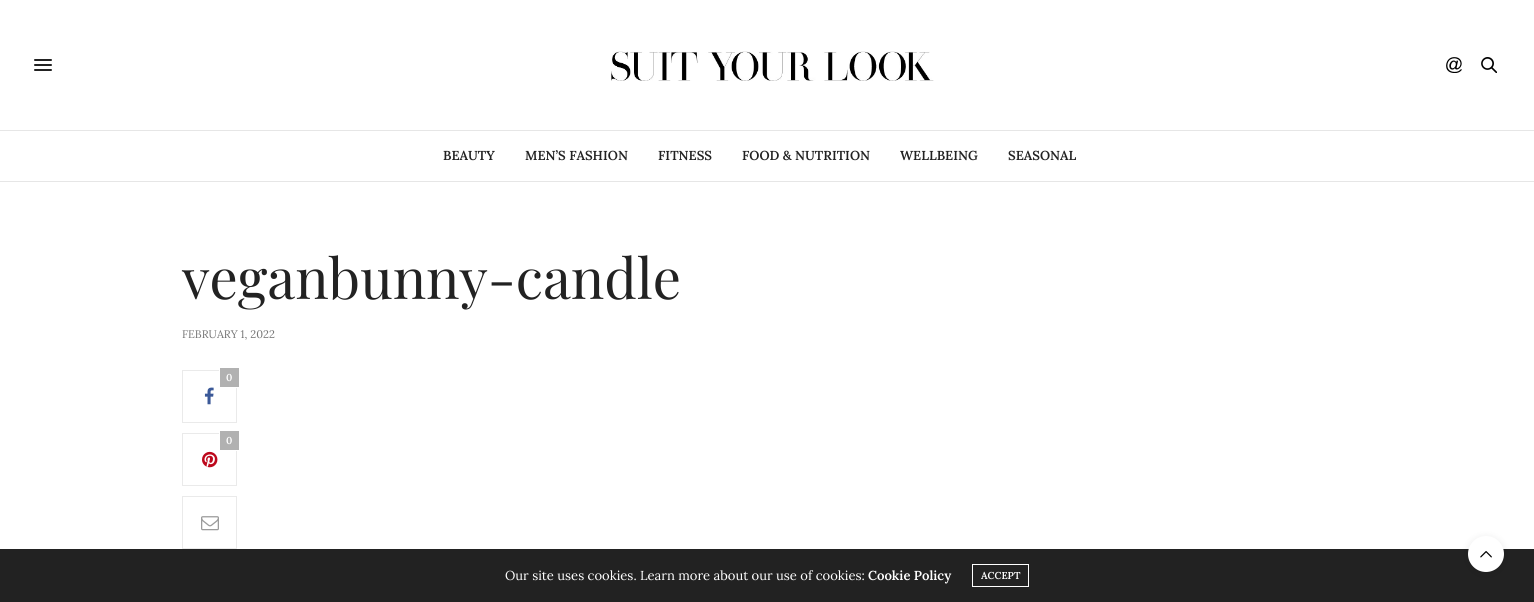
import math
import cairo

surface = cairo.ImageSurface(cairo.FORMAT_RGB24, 1534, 602)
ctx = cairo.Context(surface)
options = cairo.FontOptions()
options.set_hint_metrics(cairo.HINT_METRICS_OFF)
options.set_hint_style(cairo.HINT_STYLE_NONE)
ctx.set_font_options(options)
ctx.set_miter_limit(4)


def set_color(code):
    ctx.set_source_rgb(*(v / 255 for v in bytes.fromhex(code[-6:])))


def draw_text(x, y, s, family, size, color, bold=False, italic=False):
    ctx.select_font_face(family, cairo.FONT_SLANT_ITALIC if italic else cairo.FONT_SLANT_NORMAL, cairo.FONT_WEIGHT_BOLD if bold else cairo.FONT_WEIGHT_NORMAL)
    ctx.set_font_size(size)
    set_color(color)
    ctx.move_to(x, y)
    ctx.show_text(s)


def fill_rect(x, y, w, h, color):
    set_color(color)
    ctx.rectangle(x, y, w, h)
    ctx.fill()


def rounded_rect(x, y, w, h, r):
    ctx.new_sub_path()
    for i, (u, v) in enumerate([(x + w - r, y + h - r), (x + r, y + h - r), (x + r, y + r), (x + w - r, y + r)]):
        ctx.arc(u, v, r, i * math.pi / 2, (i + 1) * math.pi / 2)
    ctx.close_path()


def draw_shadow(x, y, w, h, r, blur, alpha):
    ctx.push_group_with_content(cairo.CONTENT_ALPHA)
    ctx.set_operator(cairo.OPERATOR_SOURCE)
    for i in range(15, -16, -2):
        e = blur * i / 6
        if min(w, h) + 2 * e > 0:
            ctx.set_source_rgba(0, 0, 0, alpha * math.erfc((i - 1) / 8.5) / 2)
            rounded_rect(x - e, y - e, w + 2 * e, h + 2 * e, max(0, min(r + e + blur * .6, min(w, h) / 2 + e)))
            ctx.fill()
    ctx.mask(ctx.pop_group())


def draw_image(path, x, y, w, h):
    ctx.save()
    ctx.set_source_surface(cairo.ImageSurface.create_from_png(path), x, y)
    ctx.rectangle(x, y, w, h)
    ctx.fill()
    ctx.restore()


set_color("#ffffff")
ctx.paint()
fill_rect(0, 130, 1534, 1, "#e6e6e6")
set_color("#222222")
rounded_rect(34, 59, 18, 2, 1)
ctx.fill()
rounded_rect(34, 64, 18, 2, 1)
ctx.fill()
rounded_rect(34, 69, 18, 2, 1)
ctx.fill()
draw_image("assets/img1.png", 611, 51, 323, 30)
draw_image("assets/img2.png", 1446, 57, 16, 16)
draw_image("assets/img3.png", 1481, 57, 16, 16)
fill_rect(0, 181, 1534, 1, "#e6e6e6")
draw_text(443, 160, "BEAUTY", "Lora SemiBold", 13, "#222222")
draw_text(525, 160, "MEN’S FASHION", "Lora SemiBold", 13, "#222222")
draw_text(658, 160, "FITNESS", "Lora SemiBold", 13, "#222222")
draw_text(742, 160, "FOOD & NUTRITION", "Lora SemiBold", 13, "#222222")
draw_text(900, 160, "WELLBEING", "Lora SemiBold", 13, "#222222")
draw_text(1008, 160, "SEASONAL", "Lora SemiBold", 13, "#222222")
draw_text(182, 299, "veganbunny-candle", "Playfair Display", 56, "#222222")
draw_text(182, 338, "FEBRUARY 1, 2022", "Lora", 11, "#767676")
ctx.rectangle(182.5, 370.5, 54, 52)
set_color("#eaeaea")
ctx.set_line_width(1)
ctx.stroke()
fill_rect(220, 368, 19, 19, "#b1b1b1")
fill_rect(236, 387, 3, 1, "#ffffff")
fill_rect(219, 368, 1, 3, "#ffffff")
draw_text(226, 381, "0", "Lora SemiBold", 10, "#ffffff")
draw_image("assets/img4.png", 204, 387, 10, 18)
ctx.rectangle(182.5, 433.5, 54, 52)
set_color("#eaeaea")
ctx.stroke()
fill_rect(220, 431, 19, 19, "#b1b1b1")
fill_rect(236, 450, 3, 1, "#ffffff")
fill_rect(219, 431, 1, 3, "#ffffff")
draw_text(226, 444, "0", "Lora SemiBold", 10, "#ffffff")
draw_image("assets/img5.png", 202, 451, 16, 17)
ctx.rectangle(182.5, 496.5, 54, 52)
set_color("#eaeaea")
ctx.stroke()
draw_image("assets/img6.png", 201, 516, 18, 15)
fill_rect(0, 549, 1534, 53, "#222222")
draw_text(505, 580, "Our site uses cookies. Learn more about our use of cookies:", "Lora", 13, "#ffffff")
draw_text(868, 580, "Cookie Policy", "Lora SemiBold", 13, "#ffffff")
ctx.rectangle(972.5, 564.5, 56, 22)
ctx.stroke()
draw_text(981, 579, "ACCEPT", "Lora SemiBold", 10, "#ffffff")
set_color("#000000")
draw_shadow(1468, 538, 36, 36, 18, 4, 0.1)
set_color("#ffffff")
ctx.arc(1486, 554, 18, 0, 2 * math.pi)
ctx.fill()
draw_image("assets/img7.png", 1480, 551, 12, 7)
surface.write_to_png("output.png")
